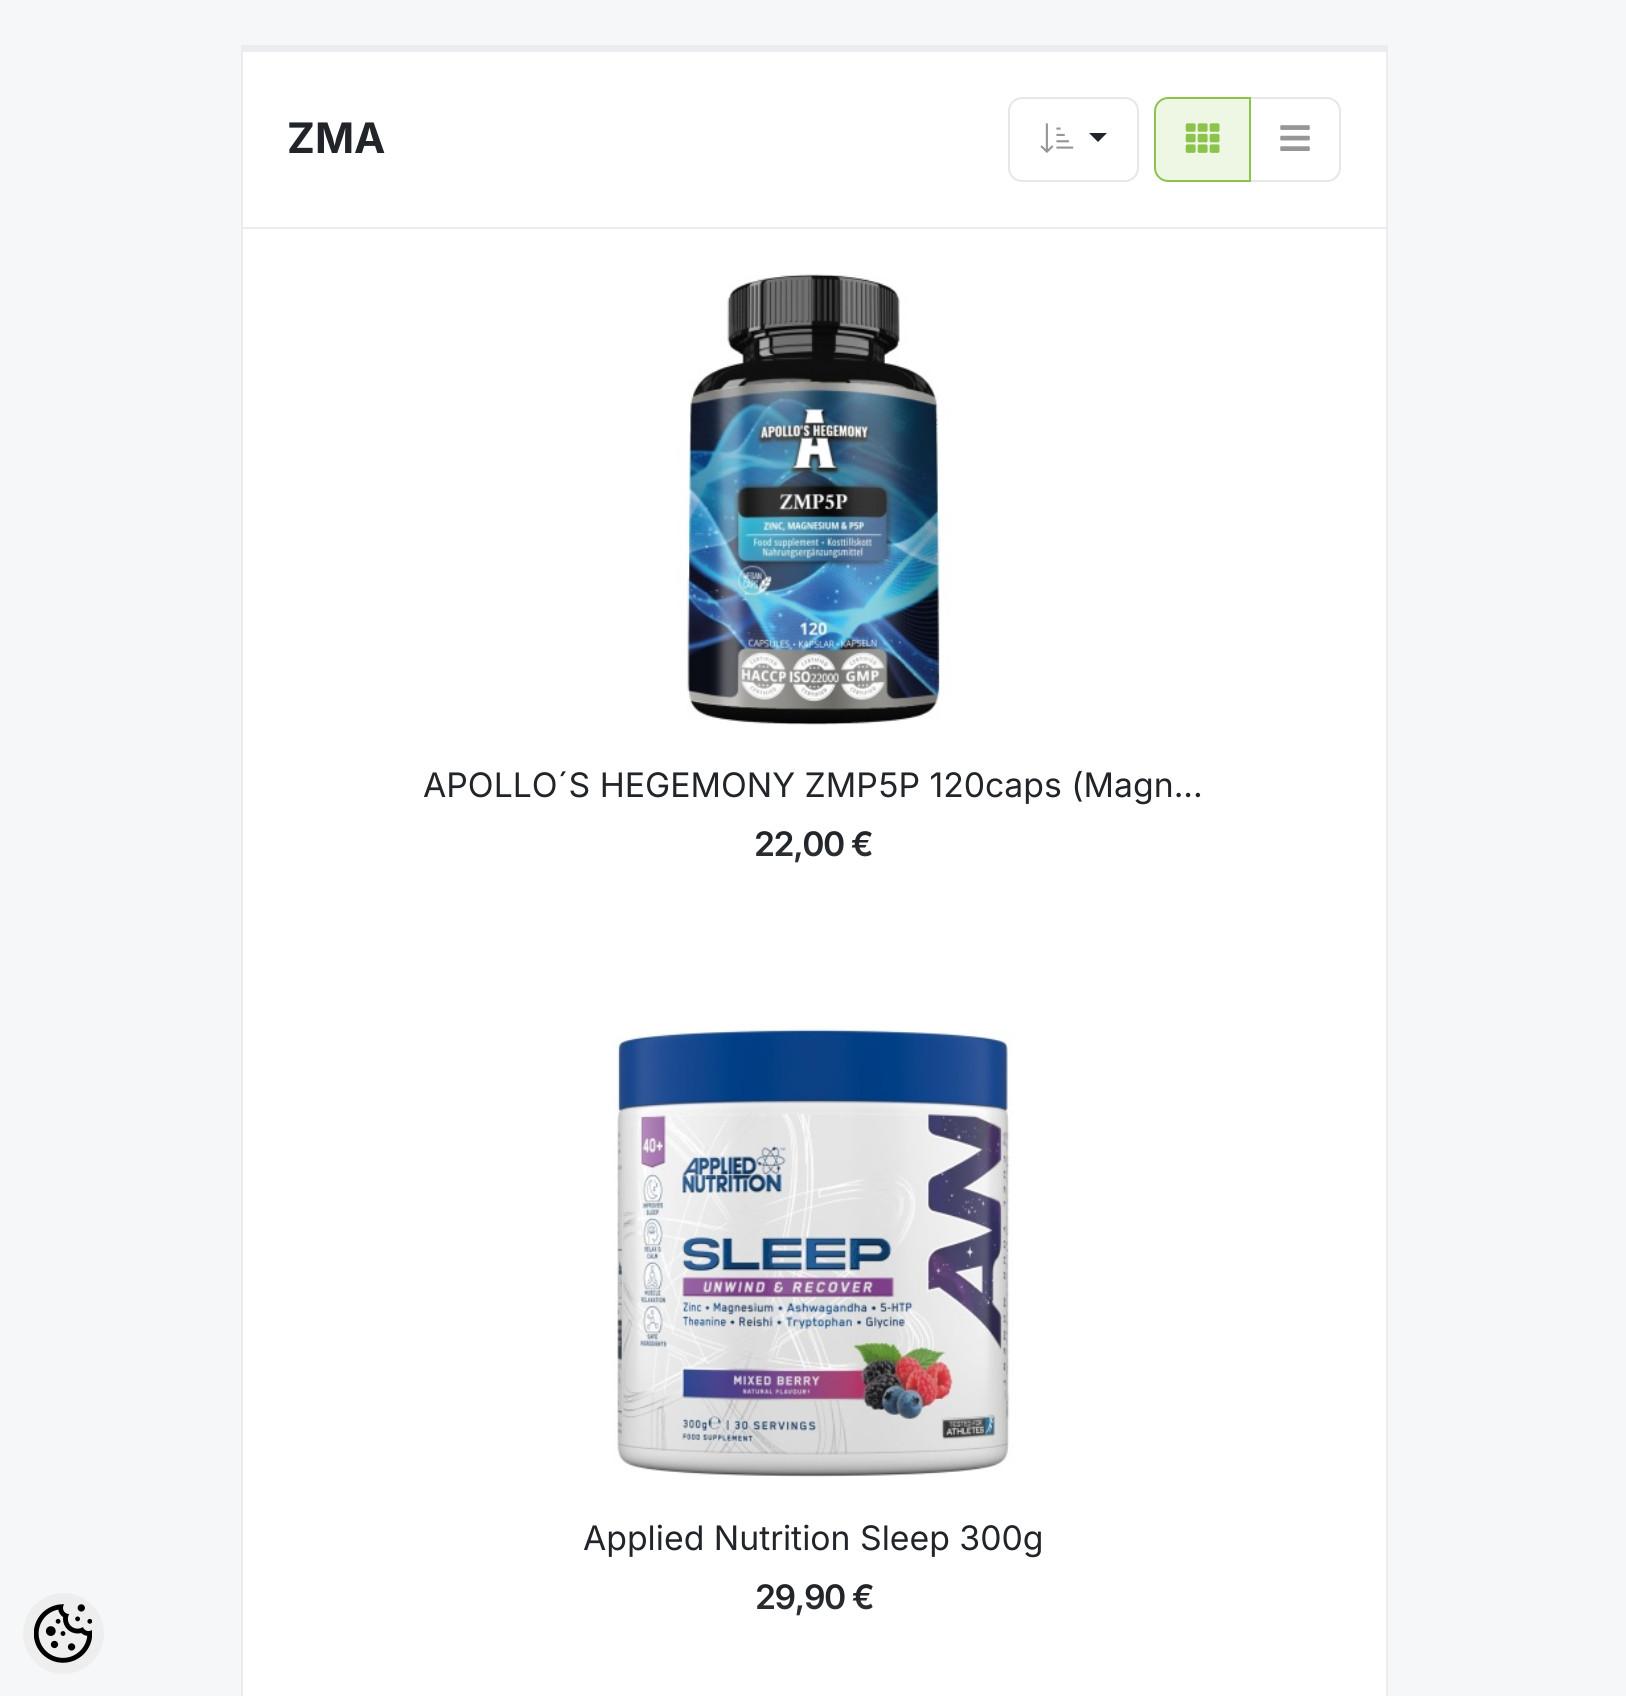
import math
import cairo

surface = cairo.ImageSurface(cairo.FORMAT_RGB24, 1626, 1696)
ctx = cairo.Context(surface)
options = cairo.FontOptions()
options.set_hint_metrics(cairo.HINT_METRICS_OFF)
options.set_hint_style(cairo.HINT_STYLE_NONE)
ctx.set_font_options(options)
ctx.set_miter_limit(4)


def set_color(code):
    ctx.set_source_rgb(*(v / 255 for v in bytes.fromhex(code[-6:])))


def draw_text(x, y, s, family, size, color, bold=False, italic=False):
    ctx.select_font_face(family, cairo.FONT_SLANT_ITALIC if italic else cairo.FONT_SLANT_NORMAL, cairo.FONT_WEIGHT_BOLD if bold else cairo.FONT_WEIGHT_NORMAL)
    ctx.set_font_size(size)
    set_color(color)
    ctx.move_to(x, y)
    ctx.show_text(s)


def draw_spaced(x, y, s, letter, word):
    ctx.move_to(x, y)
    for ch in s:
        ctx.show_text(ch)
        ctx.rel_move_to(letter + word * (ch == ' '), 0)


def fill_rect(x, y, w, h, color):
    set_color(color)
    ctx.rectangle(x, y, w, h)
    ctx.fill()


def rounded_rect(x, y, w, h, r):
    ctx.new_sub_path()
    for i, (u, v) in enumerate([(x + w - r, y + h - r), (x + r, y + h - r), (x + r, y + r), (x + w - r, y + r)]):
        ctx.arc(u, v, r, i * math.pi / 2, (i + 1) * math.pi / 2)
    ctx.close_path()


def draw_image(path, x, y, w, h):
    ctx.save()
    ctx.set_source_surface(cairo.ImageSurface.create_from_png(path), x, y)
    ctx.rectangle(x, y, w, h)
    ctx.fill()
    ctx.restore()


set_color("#f6f7f9")
ctx.paint()
fill_rect(241, 45, 1147, 5, "#ebecf0")
set_color("#ffffff")
ctx.rectangle(242, 51, 1145, 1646)
ctx.fill_preserve()
set_color("#ebecf0")
ctx.stroke()
fill_rect(243, 227, 1143, 2, "#ebecf0")
draw_text(287, 153, "ZMA", "Inter", 42, "#212529", bold=True)
rounded_rect(1009, 98, 129, 83, 13)
set_color("#e5e7ea")
ctx.stroke()
draw_image("assets/img1.png", 1040, 123, 34, 30)
set_color("#212529")
ctx.new_path()
ctx.move_to(1089, 133)
ctx.line_to(1107, 133)
ctx.line_to(1098, 142)
ctx.close_path()
ctx.fill()
ctx.new_path()
ctx.move_to(1250, 98)
ctx.line_to(1327, 98)
ctx.curve_to(1334, 98, 1340, 104, 1340, 111)
ctx.line_to(1340, 168)
ctx.curve_to(1340, 175, 1334, 181, 1327, 181)
ctx.line_to(1250, 181)
ctx.close_path()
set_color("#e5e7ea")
ctx.stroke()
set_color("#eef6e4")
ctx.new_path()
ctx.move_to(1168, 98)
ctx.line_to(1250, 98)
ctx.line_to(1250, 181)
ctx.line_to(1168, 181)
ctx.curve_to(1161, 181, 1155, 175, 1155, 168)
ctx.line_to(1155, 111)
ctx.curve_to(1155, 104, 1161, 98, 1168, 98)
ctx.close_path()
ctx.fill_preserve()
set_color("#8bc34b")
ctx.stroke()
draw_image("assets/img2.png", 1185, 123, 35, 30)
draw_image("assets/img3.png", 1280, 125, 30, 26)
draw_image("assets/img4.png", 676, 274, 275, 451)
draw_text(423, 797, "APOLLO´S HEGEMONY ZMP5P 120caps (Magn...", "Inter", 33.75, "#212529")
ctx.select_font_face("Inter SemiBold")
draw_spaced(754, 856, "22,00 €", -1.5, 0)
gradient = cairo.LinearGradient(815, 835, 815, 1321)
gradient.add_color_stop_rgba(0, 1, 1, 1, 0)
gradient.add_color_stop_rgba(1, 1, 1, 1, 1)
ctx.set_source(gradient)
ctx.rectangle(756, 845, 116, 18)
ctx.fill()
draw_image("assets/img5.png", 613, 1029, 401, 448)
draw_text(583, 1550, "Applied Nutrition Sleep 300g", "Inter", 33.75, "#212529")
ctx.select_font_face("Inter SemiBold")
draw_spaced(755, 1609, "29,90 €", -1.5, 0)
gradient = cairo.LinearGradient(815, 1589, 815, 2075)
gradient.add_color_stop_rgba(0, 1, 1, 1, 0)
gradient.add_color_stop_rgba(1, 1, 1, 1, 1)
ctx.set_source(gradient)
ctx.rectangle(757, 1599, 115, 17)
ctx.fill()
set_color("#eeeeee")
ctx.arc(63.5, 1633.5, 40.5, 0, 2 * math.pi)
ctx.fill()
draw_image("assets/img6.png", 34, 1604, 58, 59)
surface.write_to_png("output.png")
